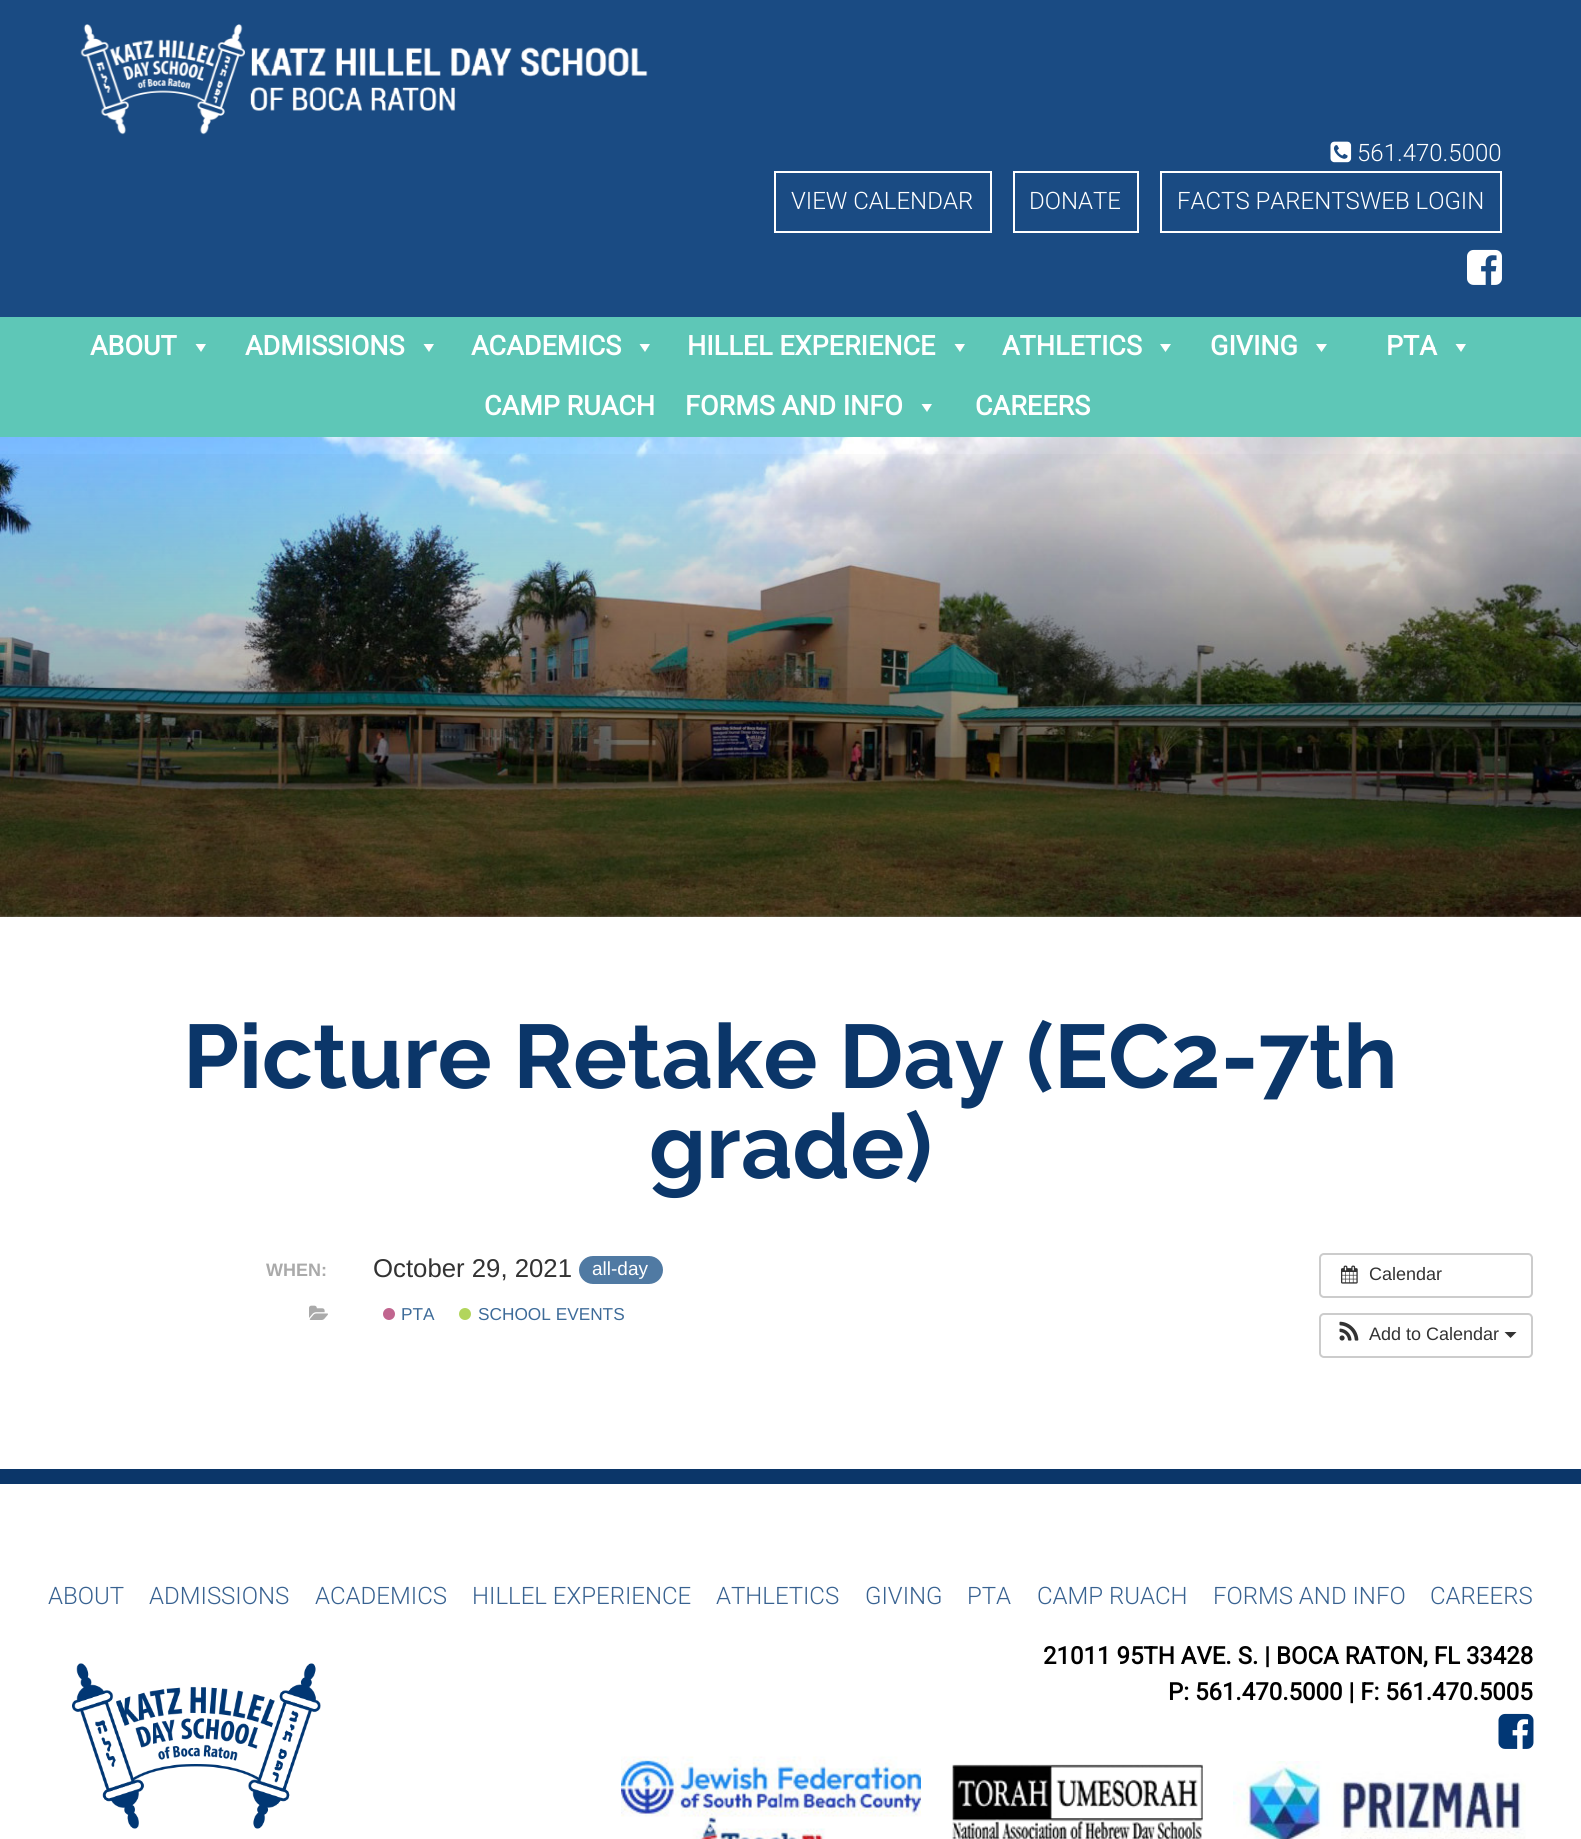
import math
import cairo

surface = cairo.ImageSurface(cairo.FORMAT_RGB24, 1581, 1839)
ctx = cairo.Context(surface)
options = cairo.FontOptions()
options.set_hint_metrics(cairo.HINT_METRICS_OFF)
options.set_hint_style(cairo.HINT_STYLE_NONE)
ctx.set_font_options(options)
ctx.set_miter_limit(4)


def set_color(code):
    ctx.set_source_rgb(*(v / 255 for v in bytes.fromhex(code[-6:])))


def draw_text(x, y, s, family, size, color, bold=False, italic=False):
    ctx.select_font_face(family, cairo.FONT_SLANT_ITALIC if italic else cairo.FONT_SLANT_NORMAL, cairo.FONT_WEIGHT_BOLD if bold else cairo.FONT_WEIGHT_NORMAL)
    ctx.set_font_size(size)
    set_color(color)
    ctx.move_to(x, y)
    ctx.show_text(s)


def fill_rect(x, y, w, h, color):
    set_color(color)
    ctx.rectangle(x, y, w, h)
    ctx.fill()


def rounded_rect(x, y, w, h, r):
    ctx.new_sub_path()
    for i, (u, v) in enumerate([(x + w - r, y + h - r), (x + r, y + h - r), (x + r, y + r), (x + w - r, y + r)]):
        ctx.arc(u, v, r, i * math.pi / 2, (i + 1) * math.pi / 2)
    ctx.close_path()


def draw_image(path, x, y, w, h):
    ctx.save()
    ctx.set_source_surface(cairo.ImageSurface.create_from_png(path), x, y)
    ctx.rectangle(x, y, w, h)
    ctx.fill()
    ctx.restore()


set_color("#ffffff")
ctx.paint()
fill_rect(0, 0, 1581, 317, "#1a4b83")
draw_image("assets/img1.png", 80, 24, 568, 111)
draw_image("assets/img2.png", 1330, 141, 22, 22)
draw_text(1357, 161, "561.470.5000", "Roboto Light", 24, "#ffffff")
ctx.rectangle(775, 172, 216, 60)
ctx.stroke()
draw_text(791, 209, "VIEW CALENDAR", "Roboto Light", 24, "#ffffff")
ctx.rectangle(1014, 172, 124, 60)
ctx.stroke()
draw_text(1029, 209, "DONATE", "Roboto Light", 24, "#ffffff")
ctx.rectangle(1161, 172, 340, 60)
ctx.stroke()
draw_text(1177, 209, "FACTS PARENTSWEB LOGIN", "Roboto Light", 24, "#ffffff")
draw_image("assets/img3.png", 1467, 249, 35, 36)
fill_rect(0, 317, 1581, 120, "#5ec7b7")
draw_text(90, 355, "ABOUT", "Roboto", 27, "#ffffff", bold=True)
ctx.new_path()
ctx.move_to(206, 344)
ctx.line_to(201, 352)
ctx.line_to(195.5, 344)
ctx.close_path()
ctx.fill()
draw_text(245, 355, "ADMISSIONS", "Roboto", 27, "#ffffff", bold=True)
ctx.new_path()
ctx.move_to(434, 344)
ctx.line_to(429, 352)
ctx.line_to(423.5, 344)
ctx.close_path()
ctx.fill()
draw_text(471, 355, "ACADEMICS", "Roboto", 27, "#ffffff", bold=True)
ctx.new_path()
ctx.move_to(650, 344)
ctx.line_to(645, 352)
ctx.line_to(639.5, 344)
ctx.close_path()
ctx.fill()
draw_text(687, 355, "HILLEL EXPERIENCE", "Roboto", 27, "#ffffff", bold=True)
ctx.new_path()
ctx.move_to(965, 344)
ctx.line_to(960, 352)
ctx.line_to(954.5, 344)
ctx.close_path()
ctx.fill()
draw_text(1002, 355, "ATHLETICS", "Roboto", 27, "#ffffff", bold=True)
ctx.new_path()
ctx.move_to(1171, 344)
ctx.line_to(1165.5, 352)
ctx.line_to(1160, 344)
ctx.close_path()
ctx.fill()
draw_text(1210, 355, "GIVING", "Roboto", 27, "#ffffff", bold=True)
ctx.new_path()
ctx.move_to(1327, 344)
ctx.line_to(1321.5, 352)
ctx.line_to(1316, 344)
ctx.close_path()
ctx.fill()
draw_text(1386, 355, "PTA", "Roboto", 27, "#ffffff", bold=True)
ctx.new_path()
ctx.move_to(1466, 344)
ctx.line_to(1461, 352)
ctx.line_to(1455.5, 344)
ctx.close_path()
ctx.fill()
draw_text(484, 415, "CAMP RUACH", "Roboto", 27, "#ffffff", bold=True)
draw_text(685, 415, "FORMS AND INFO", "Roboto", 27, "#ffffff", bold=True)
ctx.new_path()
ctx.move_to(932, 404)
ctx.line_to(927, 412)
ctx.line_to(921.5, 404)
ctx.close_path()
ctx.fill()
draw_text(975, 415, "CAREERS", "Roboto", 27, "#ffffff", bold=True)
draw_image("assets/img4.png", 0, 437, 1581, 480)
gradient = cairo.LinearGradient(791, 917, 791, 437)
gradient.add_color_stop_rgba(0.33, 0, 0, 0, 0.4)
gradient.add_color_stop_rgba(1, 0, 0, 0, 0)
ctx.set_source(gradient)
ctx.rectangle(0, 454, 1581, 463)
ctx.fill()
draw_text(183, 1088, "Picture Retake Day (EC2-7th", "Raleway", 90, "#0b3669", bold=True)
draw_text(649, 1178, "grade)", "Raleway", 90, "#0b3669", bold=True)
draw_text(266, 1276, "WHEN:", "Liberation Sans", 18, "#aaaaaa", bold=True)
draw_text(373, 1277, "October 29, 2021", "Liberation Sans", 25.75, "#333333")
set_color("#507aa3")
rounded_rect(579, 1256, 84, 28, 14)
ctx.fill()
draw_text(592, 1275, "all-day", "Liberation Sans", 19, "#ffffff")
draw_image("assets/img5.png", 309, 1305, 19, 15)
set_color("#c1658f")
ctx.arc(389, 1314, 6, 0, 2 * math.pi)
ctx.fill()
draw_text(401, 1320, "PTA", "Liberation Sans", 17.25, "#3d6b99")
set_color("#b2d55c")
ctx.new_path()
ctx.arc(465, 1314, 6, 0, 2 * math.pi)
ctx.fill()
draw_text(478, 1320, "SCHOOL EVENTS", "Liberation Sans", 17.25, "#3d6b99")
rounded_rect(1320, 1254, 212, 43, 4)
set_color("#cccccc")
ctx.stroke()
draw_image("assets/img6.png", 1341, 1265, 17, 19)
draw_text(1369, 1280, "Calendar", "Liberation Sans", 18, "#333333")
rounded_rect(1320, 1314, 212, 43, 4)
set_color("#cccccc")
ctx.stroke()
draw_image("assets/img7.png", 1339, 1321, 20, 20)
draw_text(1369, 1340, "Add to Calendar", "Liberation Sans", 18, "#333333")
ctx.new_path()
ctx.move_to(1504.5, 1332)
ctx.line_to(1516.5, 1332)
ctx.line_to(1510.5, 1338)
ctx.close_path()
ctx.fill()
fill_rect(0, 1469, 1581, 15, "#0b3669")
draw_text(48, 1604, "ABOUT", "Roboto Light", 24, "#386291")
draw_text(149, 1604, "ADMISSIONS", "Roboto Light", 24, "#386291")
draw_text(315, 1604, "ACADEMICS", "Roboto Light", 24, "#386291")
draw_text(472, 1604, "HILLEL EXPERIENCE", "Roboto Light", 24, "#386291")
draw_text(716, 1604, "ATHLETICS", "Roboto Light", 24, "#386291")
draw_text(865, 1604, "GIVING", "Roboto Light", 24, "#386291")
draw_text(967, 1604, "PTA", "Roboto Light", 24, "#386291")
draw_text(1037, 1604, "CAMP RUACH", "Roboto Light", 24, "#386291")
draw_text(1213, 1604, "FORMS AND INFO", "Roboto Light", 24, "#386291")
draw_text(1430, 1604, "CAREERS", "Roboto Light", 24, "#386291")
draw_image("assets/img8.png", 72, 1663, 249, 166)
draw_text(1043, 1664, "21011 95TH AVE. S. | BOCA RATON, FL 33428", "Roboto", 24, "#000000", bold=True)
draw_text(1168, 1700, "P: 561.470.5000 | F: 561.470.5005", "Roboto", 24, "#000000", bold=True)
draw_image("assets/img9.png", 1498, 1713, 36, 36)
draw_image("assets/img10.png", 621, 1756, 300, 83)
draw_image("assets/img11.png", 952, 1764, 251, 75)
draw_image("assets/img12.png", 1233, 1761, 293, 78)
surface.write_to_png("output.png")
